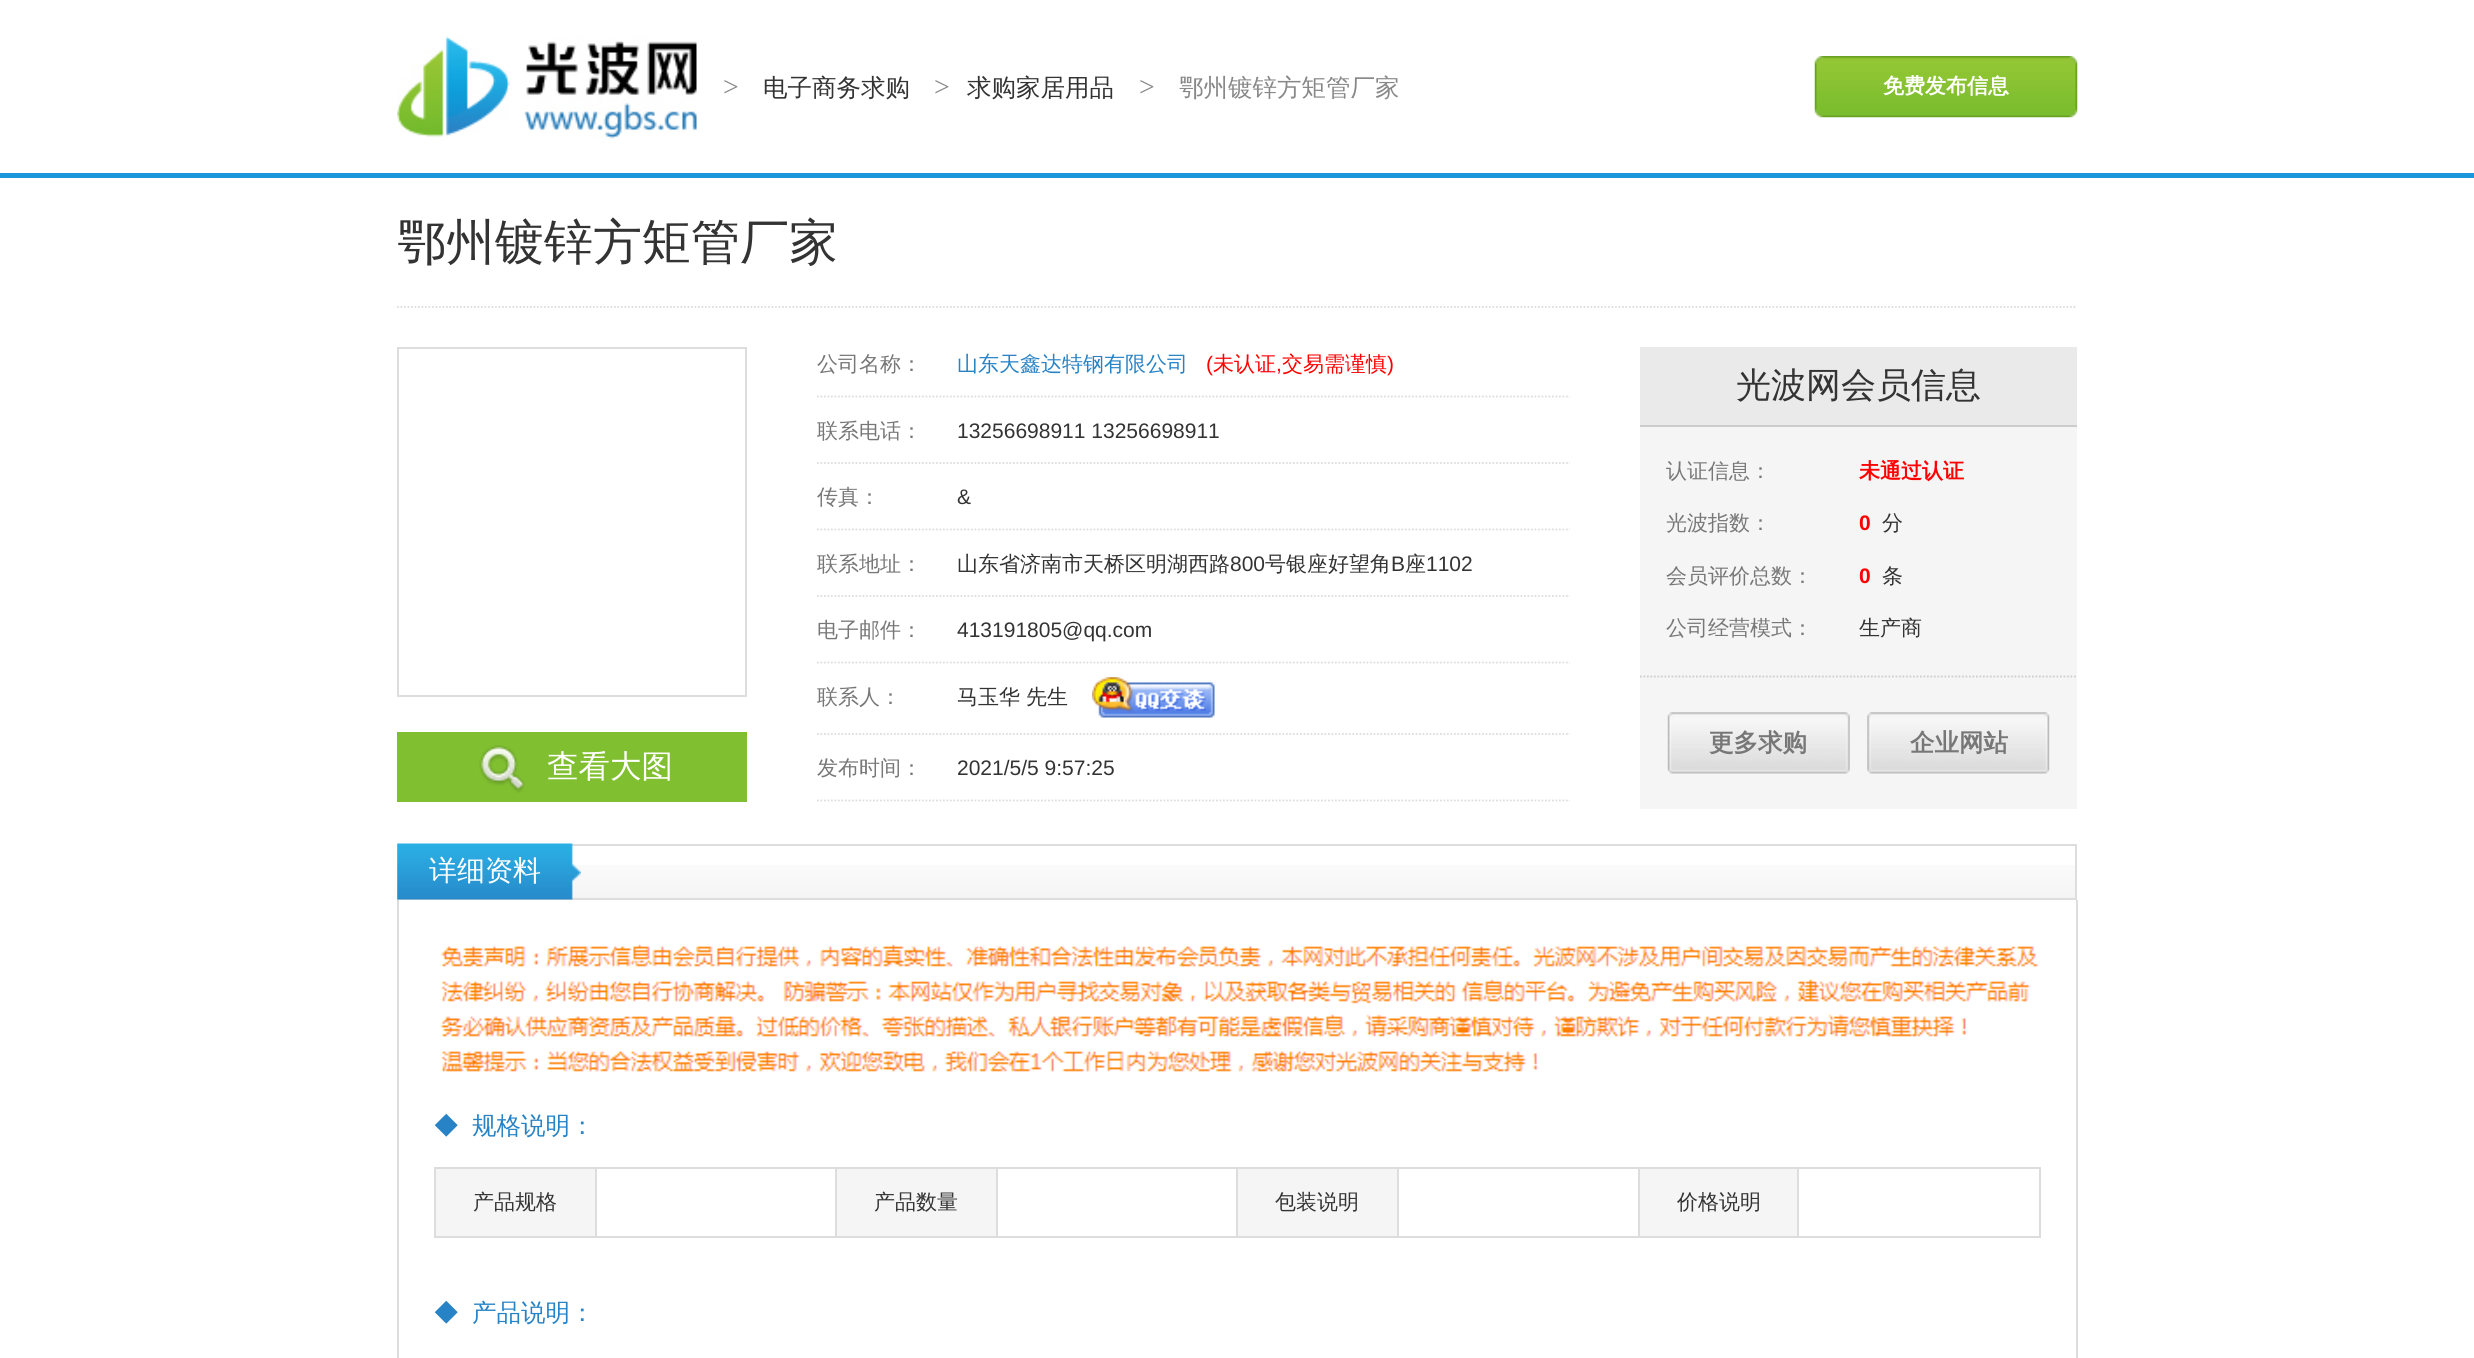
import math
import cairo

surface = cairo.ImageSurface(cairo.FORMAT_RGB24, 2474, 1358)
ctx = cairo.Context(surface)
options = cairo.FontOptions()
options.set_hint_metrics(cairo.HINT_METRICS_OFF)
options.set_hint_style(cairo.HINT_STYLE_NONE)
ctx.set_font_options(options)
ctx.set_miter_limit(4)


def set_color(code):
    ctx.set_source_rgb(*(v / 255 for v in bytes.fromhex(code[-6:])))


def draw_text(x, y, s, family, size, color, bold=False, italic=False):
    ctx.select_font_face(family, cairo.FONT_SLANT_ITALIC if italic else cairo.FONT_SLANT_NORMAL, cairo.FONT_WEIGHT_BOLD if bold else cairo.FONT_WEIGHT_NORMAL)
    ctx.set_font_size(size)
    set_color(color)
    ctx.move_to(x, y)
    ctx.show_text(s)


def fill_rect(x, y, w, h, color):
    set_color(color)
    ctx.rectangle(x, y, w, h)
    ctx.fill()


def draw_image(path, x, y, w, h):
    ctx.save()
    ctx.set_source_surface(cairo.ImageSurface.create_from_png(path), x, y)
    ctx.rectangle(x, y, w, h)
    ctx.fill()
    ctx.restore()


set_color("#ffffff")
ctx.paint()
fill_rect(0, 173, 2474, 5, "#1a97da")
draw_image("assets/img1.png", 397, 36, 300, 103)
draw_text(723, 96, ">", "Liberation Serif", 28, "#888888")
draw_text(763, 96, "电子商务求购", "WenQuanYi Zen Hei Medium", 24.5, "#333333")
draw_text(934, 96, ">", "Liberation Serif", 28, "#888888")
draw_text(967, 96, "求购家居用品", "WenQuanYi Zen Hei Medium", 24.5, "#333333")
draw_text(1139, 96, ">", "Liberation Serif", 28, "#888888")
draw_text(1179, 96, "鄂州镀锌方矩管厂家", "WenQuanYi Zen Hei Medium", 24.5, "#888888")
draw_image("assets/img2.png", 1814, 56, 264, 62)
draw_text(1883, 93, "免费发布信息", "WenQuanYi Zen Hei", 21, "#ffffff", bold=True)
ctx.new_path()
ctx.move_to(397, 307)
ctx.line_to(2077, 307)
set_color("#dddddd")
ctx.set_line_width(1.8)
ctx.set_dash([1.75, 1.75])
ctx.stroke()
draw_text(397, 259, "鄂州镀锌方矩管厂家", "WenQuanYi Zen Hei Medium", 49, "#333333")
ctx.new_path()
ctx.move_to(817, 396.5)
ctx.line_to(1570, 396.5)
set_color("#dddddd")
ctx.stroke()
draw_text(817, 371, "公司名称：", "WenQuanYi Zen Hei Medium", 21, "#777777")
draw_text(957, 371, "山东天鑫达特钢有限公司", "WenQuanYi Zen Hei Medium", 21, "#2783c6")
draw_text(1206, 371, "(", "Liberation Sans", 21, "#ff0000")
draw_text(1213, 371, "未认证", "WenQuanYi Zen Hei Medium", 21, "#ff0000")
draw_text(1276, 371, ",", "Liberation Sans", 21, "#ff0000")
draw_text(1282, 371, "交易需谨慎", "WenQuanYi Zen Hei Medium", 21, "#ff0000")
draw_text(1387, 371, ")", "Liberation Sans", 21, "#ff0000")
ctx.new_path()
ctx.move_to(817, 463)
ctx.line_to(1570, 463)
set_color("#dddddd")
ctx.stroke()
draw_text(817, 438, "联系电话：", "WenQuanYi Zen Hei Medium", 21, "#777777")
draw_text(957, 438, "13256698911 13256698911", "Liberation Sans", 21, "#333333")
ctx.new_path()
ctx.move_to(817, 529.5)
ctx.line_to(1570, 529.5)
set_color("#dddddd")
ctx.stroke()
draw_text(817, 504, "传真：", "WenQuanYi Zen Hei Medium", 21, "#777777")
draw_text(957, 504, "&", "Liberation Sans", 21, "#333333")
ctx.new_path()
ctx.move_to(817, 596)
ctx.line_to(1570, 596)
set_color("#dddddd")
ctx.stroke()
draw_text(817, 571, "联系地址：", "WenQuanYi Zen Hei Medium", 21, "#777777")
draw_text(957, 571, "山东省济南市天桥区明湖西路", "WenQuanYi Zen Hei Medium", 21, "#333333")
draw_text(1230, 571, "800", "Liberation Sans", 21, "#333333")
draw_text(1265, 571, "号银座好望角", "WenQuanYi Zen Hei Medium", 21, "#333333")
draw_text(1391, 571, "B", "Liberation Sans", 21, "#333333")
draw_text(1405, 571, "座", "WenQuanYi Zen Hei Medium", 21, "#333333")
draw_text(1426, 571, "1102", "Liberation Sans", 21, "#333333")
ctx.new_path()
ctx.move_to(817, 662.5)
ctx.line_to(1570, 662.5)
set_color("#dddddd")
ctx.stroke()
draw_text(817, 637, "电子邮件：", "WenQuanYi Zen Hei Medium", 21, "#777777")
draw_text(957, 637, "413191805@qq.com", "Liberation Sans", 21, "#333333")
ctx.new_path()
ctx.move_to(817, 734)
ctx.line_to(1570, 734)
set_color("#dddddd")
ctx.stroke()
draw_text(817, 704, "联系人：", "WenQuanYi Zen Hei Medium", 21, "#777777")
draw_text(957, 704, "马玉华", "WenQuanYi Zen Hei Medium", 21, "#333333")
draw_text(1026, 704, "先生", "WenQuanYi Zen Hei Medium", 21, "#333333")
draw_image("assets/img3.png", 1092, 677, 123, 41)
ctx.new_path()
ctx.move_to(817, 800.5)
ctx.line_to(1570, 800.5)
set_color("#dddddd")
ctx.stroke()
draw_text(817, 775, "发布时间：", "WenQuanYi Zen Hei Medium", 21, "#777777")
draw_text(957, 775, "2021/5/5 9:57:25", "Liberation Sans", 21, "#333333")
fill_rect(1640, 427, 437, 382, "#f5f5f5")
fill_rect(1640, 347, 437, 78, "#eaeaea")
fill_rect(1640, 425, 437, 2, "#cccccc")
draw_text(1736, 397, "光波网会员信息", "WenQuanYi Zen Hei Medium", 35, "#333333")
draw_text(1666, 478, "认证信息：", "WenQuanYi Zen Hei Medium", 21, "#777777")
draw_text(1859, 478, "未通过认证", "WenQuanYi Zen Hei", 21, "#ff0000", bold=True)
draw_text(1666, 530, "光波指数：", "WenQuanYi Zen Hei Medium", 21, "#777777")
draw_text(1859, 530, "0", "Liberation Sans", 21, "#ff0000", bold=True)
draw_text(1882, 530, "分", "WenQuanYi Zen Hei Medium", 21, "#333333")
draw_text(1666, 583, "会员评价总数：", "WenQuanYi Zen Hei Medium", 21, "#777777")
draw_text(1859, 583, "0", "Liberation Sans", 21, "#ff0000", bold=True)
draw_text(1882, 583, "条", "WenQuanYi Zen Hei Medium", 21, "#333333")
draw_text(1666, 635, "公司经营模式：", "WenQuanYi Zen Hei Medium", 21, "#777777")
draw_text(1859, 635, "生产商", "WenQuanYi Zen Hei Medium", 21, "#333333")
ctx.new_path()
ctx.move_to(1640, 676.5)
ctx.line_to(2077, 676.5)
set_color("#cccccc")
ctx.stroke()
draw_image("assets/img4.png", 1667, 712, 183, 62)
draw_text(1709, 751, "更多求购", "WenQuanYi Zen Hei", 24.5, "#777777", bold=True)
draw_image("assets/img5.png", 1867, 712, 183, 62)
draw_text(1910, 751, "企业网站", "WenQuanYi Zen Hei", 24.5, "#777777", bold=True)
ctx.rectangle(398, 348, 348, 348)
set_color("#dddddd")
ctx.set_line_width(2)
ctx.set_dash([])
ctx.stroke()
fill_rect(397, 732, 350, 70, "#80bf30")
draw_image("assets/img6.png", 479, 745, 46, 48)
draw_text(547, 777, "查看大图", "WenQuanYi Zen Hei Medium", 31.5, "#ffffff")
draw_image("assets/img7.png", 571, 865, 1504, 33)
ctx.rectangle(398, 845, 1678, 54)
set_color("#dddddd")
ctx.stroke()
draw_image("assets/img8.png", 397, 843, 184, 57)
draw_text(429, 880, "详细资料", "WenQuanYi Zen Hei Medium", 28, "#ffffff")
fill_rect(2076, 900, 2, 458, "#dddddd")
fill_rect(397, 900, 2, 458, "#dddddd")
draw_image("assets/img9.png", 440, 944, 1599, 128)
draw_text(434, 1134, "◆", "WenQuanYi Zen Hei Medium", 24.5, "#2783c6")
draw_text(472, 1134, "规格说明：", "WenQuanYi Zen Hei Medium", 24.5, "#2783c6")
fill_rect(434, 1167, 1607, 2, "#dddddd")
fill_rect(434, 1167, 2, 70, "#dddddd")
fill_rect(436, 1169, 159, 67, "#f5f5f5")
fill_rect(2039, 1167, 2, 70, "#dddddd")
fill_rect(1797, 1236, 244, 2, "#dddddd")
fill_rect(1797, 1167, 2, 70, "#dddddd")
fill_rect(1638, 1236, 161, 2, "#dddddd")
fill_rect(1638, 1167, 2, 70, "#dddddd")
fill_rect(1397, 1236, 243, 2, "#dddddd")
fill_rect(1397, 1167, 2, 70, "#dddddd")
fill_rect(1236, 1236, 162, 2, "#dddddd")
fill_rect(1236, 1167, 2, 70, "#dddddd")
fill_rect(996, 1236, 241, 2, "#dddddd")
fill_rect(996, 1167, 2, 70, "#dddddd")
fill_rect(835, 1236, 163, 2, "#dddddd")
fill_rect(835, 1167, 2, 70, "#dddddd")
fill_rect(595, 1236, 242, 2, "#dddddd")
fill_rect(595, 1167, 2, 70, "#dddddd")
fill_rect(434, 1236, 163, 2, "#dddddd")
draw_text(473, 1209, "产品规格", "WenQuanYi Zen Hei Medium", 21, "#333333")
fill_rect(837, 1169, 159, 67, "#f5f5f5")
draw_text(874, 1209, "产品数量", "WenQuanYi Zen Hei Medium", 21, "#333333")
fill_rect(1238, 1169, 159, 67, "#f5f5f5")
draw_text(1275, 1209, "包装说明", "WenQuanYi Zen Hei Medium", 21, "#333333")
fill_rect(1640, 1169, 157, 67, "#f5f5f5")
draw_text(1677, 1209, "价格说明", "WenQuanYi Zen Hei Medium", 21, "#333333")
draw_text(434, 1321, "◆", "WenQuanYi Zen Hei Medium", 24.5, "#2783c6")
draw_text(472, 1321, "产品说明：", "WenQuanYi Zen Hei Medium", 24.5, "#2783c6")
surface.write_to_png("output.png")
